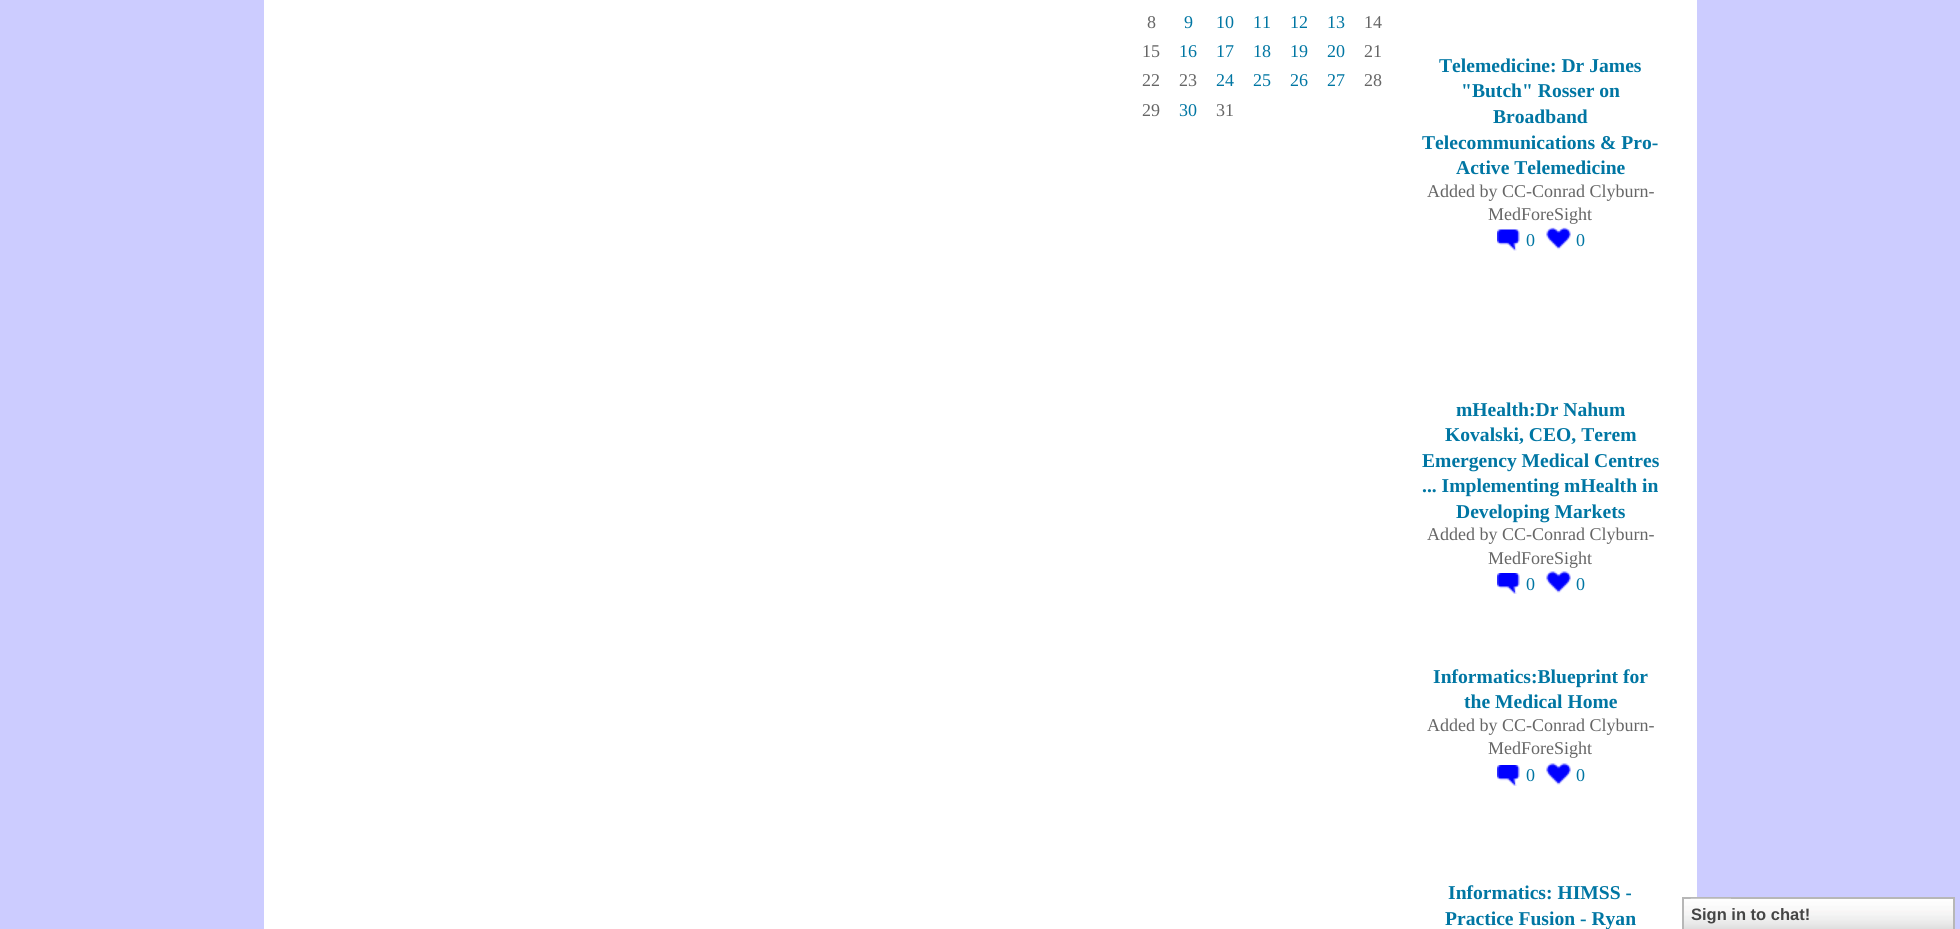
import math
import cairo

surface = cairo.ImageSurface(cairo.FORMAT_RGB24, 1960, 929)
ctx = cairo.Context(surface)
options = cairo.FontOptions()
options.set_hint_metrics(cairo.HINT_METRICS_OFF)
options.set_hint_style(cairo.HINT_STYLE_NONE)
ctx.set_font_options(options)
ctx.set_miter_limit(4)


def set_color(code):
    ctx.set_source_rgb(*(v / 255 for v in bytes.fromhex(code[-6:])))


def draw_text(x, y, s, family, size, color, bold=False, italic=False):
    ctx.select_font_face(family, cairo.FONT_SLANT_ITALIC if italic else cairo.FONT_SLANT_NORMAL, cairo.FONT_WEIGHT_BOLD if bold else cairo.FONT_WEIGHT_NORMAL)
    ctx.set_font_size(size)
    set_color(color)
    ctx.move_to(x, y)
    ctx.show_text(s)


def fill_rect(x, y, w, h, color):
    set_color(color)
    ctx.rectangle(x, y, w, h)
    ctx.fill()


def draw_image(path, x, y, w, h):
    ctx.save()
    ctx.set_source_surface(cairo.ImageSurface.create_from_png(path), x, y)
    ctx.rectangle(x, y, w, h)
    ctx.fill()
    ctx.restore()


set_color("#ccccff")
ctx.paint()
fill_rect(264, 0, 1433, 929, "#ffffff")
draw_text(1147, 28, "8", "Liberation Serif", 18, "#666666")
draw_text(1184, 28, "9", "Liberation Serif", 18, "#0076a3")
draw_text(1216, 28, "10", "Liberation Serif", 18, "#0076a3")
draw_text(1253, 28, "11", "Liberation Serif", 18, "#0076a3")
draw_text(1290, 28, "12", "Liberation Serif", 18, "#0076a3")
draw_text(1327, 28, "13", "Liberation Serif", 18, "#0076a3")
draw_text(1364, 28, "14", "Liberation Serif", 18, "#666666")
draw_text(1142, 57, "15", "Liberation Serif", 18, "#666666")
draw_text(1179, 57, "16", "Liberation Serif", 18, "#0076a3")
draw_text(1216, 57, "17", "Liberation Serif", 18, "#0076a3")
draw_text(1253, 57, "18", "Liberation Serif", 18, "#0076a3")
draw_text(1290, 57, "19", "Liberation Serif", 18, "#0076a3")
draw_text(1327, 57, "20", "Liberation Serif", 18, "#0076a3")
draw_text(1364, 57, "21", "Liberation Serif", 18, "#666666")
draw_text(1142, 86, "22", "Liberation Serif", 18, "#666666")
draw_text(1179, 86, "23", "Liberation Serif", 18, "#666666")
draw_text(1216, 86, "24", "Liberation Serif", 18, "#0076a3")
draw_text(1253, 86, "25", "Liberation Serif", 18, "#0076a3")
draw_text(1290, 86, "26", "Liberation Serif", 18, "#0076a3")
draw_text(1327, 86, "27", "Liberation Serif", 18, "#0076a3")
draw_text(1364, 86, "28", "Liberation Serif", 18, "#666666")
draw_text(1142, 116, "29", "Liberation Serif", 18, "#666666")
draw_text(1179, 116, "30", "Liberation Serif", 18, "#0076a3")
draw_text(1216, 116, "31", "Liberation Serif", 18, "#666666")
draw_text(1439, 72, "Telemedicine: Dr James", "Liberation Serif", 19.6, "#0076a3", bold=True)
draw_text(1461, 97, "\"Butch\" Rosser on", "Liberation Serif", 19.6, "#0076a3", bold=True)
draw_text(1493, 123, "Broadband", "Liberation Serif", 19.6, "#0076a3", bold=True)
draw_text(1422, 149, "Telecommunications & Pro-", "Liberation Serif", 19.6, "#0076a3", bold=True)
draw_text(1456, 174, "Active Telemedicine", "Liberation Serif", 19.6, "#0076a3", bold=True)
draw_text(1427, 197, "Added by CC-Conrad Clyburn-", "Liberation Serif", 18, "#666666")
draw_text(1488, 220, "MedForeSight", "Liberation Serif", 18, "#666666")
draw_image("assets/img1.png", 1497, 229, 23, 22)
draw_text(1526, 246, "0", "Liberation Serif", 18, "#0076a3")
draw_image("assets/img2.png", 1546, 227, 25, 23)
draw_text(1576, 246, "0", "Liberation Serif", 18, "#0076a3")
draw_text(1456, 416, "mHealth:Dr Nahum", "Liberation Serif", 19.6, "#0076a3", bold=True)
draw_text(1445, 441, "Kovalski, CEO, Terem", "Liberation Serif", 19.6, "#0076a3", bold=True)
draw_text(1422, 467, "Emergency Medical Centres", "Liberation Serif", 19.6, "#0076a3", bold=True)
draw_text(1422, 492, "... Implementing mHealth in", "Liberation Serif", 19.6, "#0076a3", bold=True)
draw_text(1456, 518, "Developing Markets", "Liberation Serif", 19.6, "#0076a3", bold=True)
draw_text(1427, 540, "Added by CC-Conrad Clyburn-", "Liberation Serif", 18, "#666666")
draw_text(1488, 564, "MedForeSight", "Liberation Serif", 18, "#666666")
draw_image("assets/img3.png", 1497, 573, 23, 21)
draw_text(1526, 590, "0", "Liberation Serif", 18, "#0076a3")
draw_image("assets/img4.png", 1546, 571, 25, 22)
draw_text(1576, 590, "0", "Liberation Serif", 18, "#0076a3")
draw_text(1433, 683, "Informatics:Blueprint for", "Liberation Serif", 19.6, "#0076a3", bold=True)
draw_text(1464, 708, "the Medical Home", "Liberation Serif", 19.6, "#0076a3", bold=True)
draw_text(1427, 731, "Added by CC-Conrad Clyburn-", "Liberation Serif", 18, "#666666")
draw_text(1488, 754, "MedForeSight", "Liberation Serif", 18, "#666666")
draw_image("assets/img3.png", 1497, 765, 23, 21)
draw_text(1526, 781, "0", "Liberation Serif", 18, "#0076a3")
draw_image("assets/img4.png", 1546, 763, 25, 22)
draw_text(1576, 781, "0", "Liberation Serif", 18, "#0076a3")
draw_text(1448, 899, "Informatics: HIMSS -", "Liberation Serif", 19.6, "#0076a3", bold=True)
draw_text(1445, 925, "Practice Fusion - Ryan", "Liberation Serif", 19.6, "#0076a3", bold=True)
draw_image("assets/img5.png", 1684, 899, 269, 30)
ctx.rectangle(1683, 898, 271, 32)
set_color("#b7b7b7")
ctx.stroke()
draw_image("assets/img6.png", 1690, 898, 41, 1)
draw_text(1691, 920, "Sign in to chat!", "Liberation Sans", 16.5, "#454545", bold=True)
surface.write_to_png("output.png")
